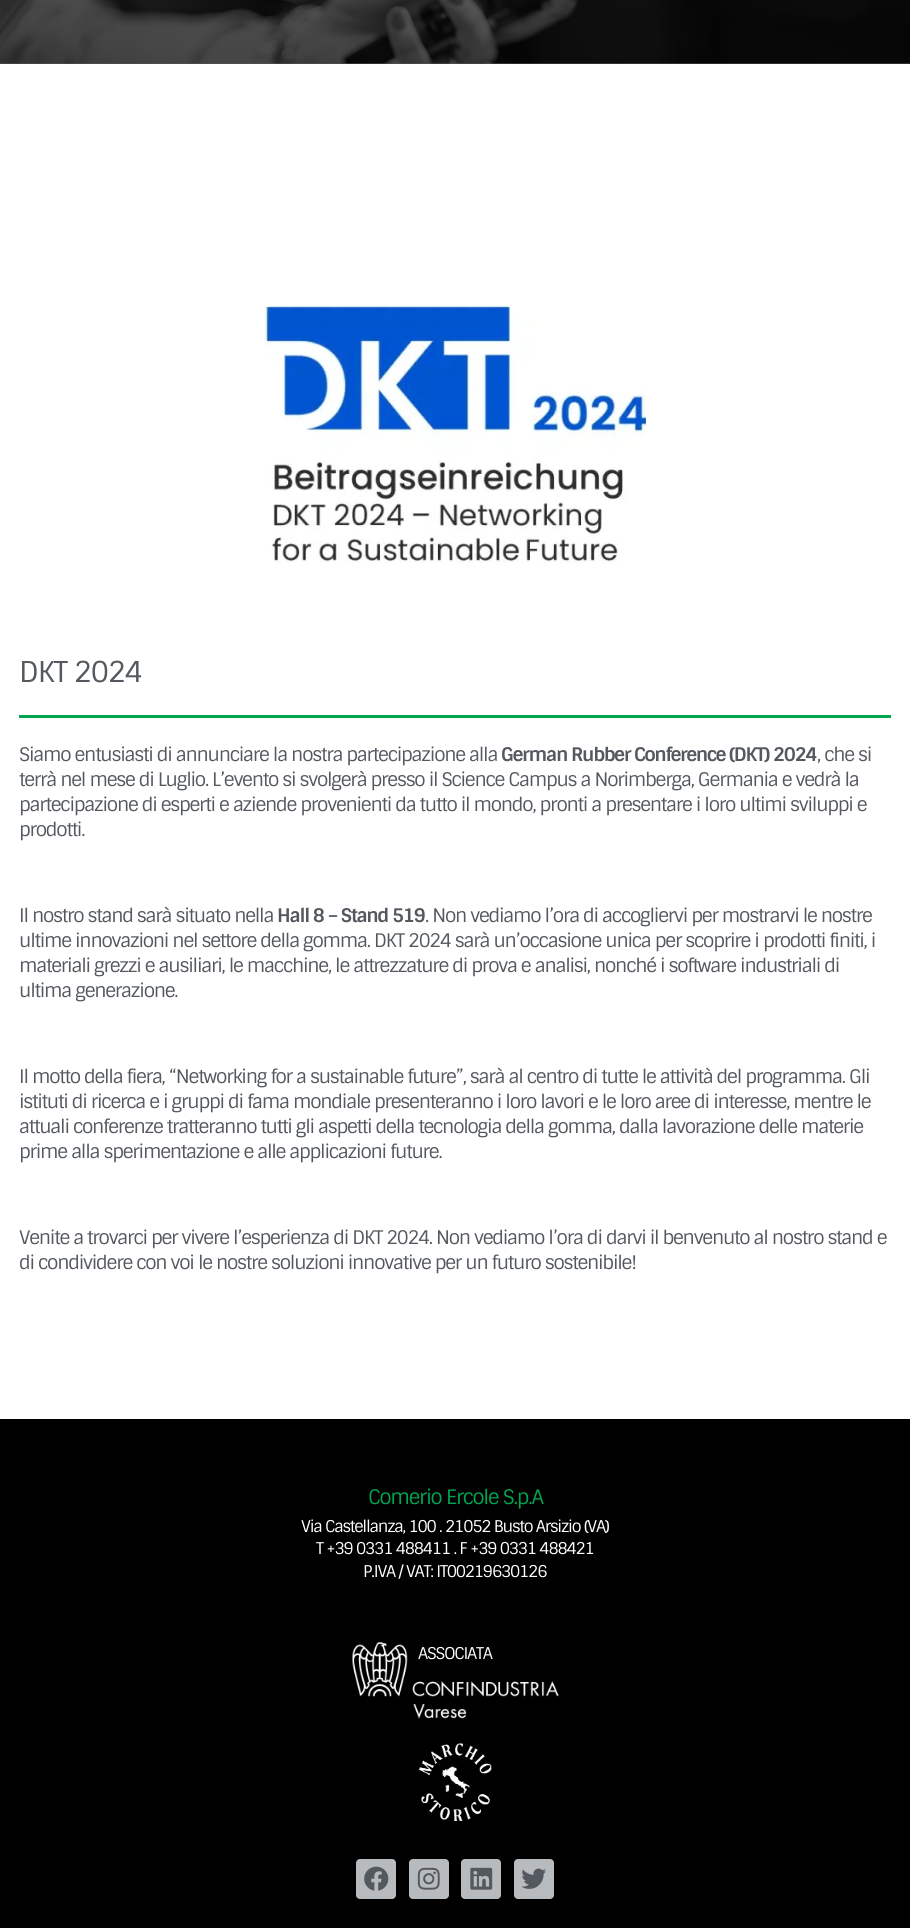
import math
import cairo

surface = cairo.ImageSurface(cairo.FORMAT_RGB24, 910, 1928)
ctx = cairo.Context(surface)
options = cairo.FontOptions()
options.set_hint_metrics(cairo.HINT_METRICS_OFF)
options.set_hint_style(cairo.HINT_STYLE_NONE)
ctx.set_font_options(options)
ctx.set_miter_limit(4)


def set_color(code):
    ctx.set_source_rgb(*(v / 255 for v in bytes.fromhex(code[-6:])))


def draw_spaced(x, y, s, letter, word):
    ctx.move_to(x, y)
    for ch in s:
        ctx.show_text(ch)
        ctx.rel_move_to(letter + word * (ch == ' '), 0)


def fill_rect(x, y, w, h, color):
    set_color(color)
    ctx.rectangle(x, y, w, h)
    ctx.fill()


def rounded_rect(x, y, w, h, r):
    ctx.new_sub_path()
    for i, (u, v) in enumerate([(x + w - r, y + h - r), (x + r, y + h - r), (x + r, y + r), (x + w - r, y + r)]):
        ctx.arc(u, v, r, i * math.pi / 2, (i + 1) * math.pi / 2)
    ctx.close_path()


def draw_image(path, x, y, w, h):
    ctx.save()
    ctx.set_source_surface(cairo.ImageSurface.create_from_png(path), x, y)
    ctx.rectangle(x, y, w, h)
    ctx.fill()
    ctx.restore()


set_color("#ffffff")
ctx.paint()
fill_rect(0, 63, 910, 1, "#575757")
draw_image("assets/img1.png", 0, 0, 910, 64)
draw_image("assets/img2.png", 264, 305, 383, 258)
ctx.select_font_face("Sintony")
ctx.set_font_size(28.75)
set_color("#54595f")
draw_spaced(19, 682, "DKT 2024", -1.25, 0)
fill_rect(19, 715, 872, 3, "#01a550")
ctx.set_font_size(18.75)
set_color("#54595f")
draw_spaced(19, 761, "Siamo entusiasti di annunciare la nostra partecipazione alla", -1.25, 0)
ctx.select_font_face("Sintony", cairo.FONT_SLANT_NORMAL, cairo.FONT_WEIGHT_BOLD)
draw_spaced(501, 761, "German Rubber Conference (DKT) 2024", -1.25, 0)
ctx.select_font_face("Sintony")
draw_spaced(817, 761, ", che si", -1.25, 0)
draw_spaced(19, 786, "terrà nel mese di Luglio. L’evento si svolgerà presso il Science Campus a Norimberga, Germania e vedrà la", -1.25, 0)
draw_spaced(19, 811, "partecipazione di esperti e aziende provenienti da tutto il mondo, pronti a presentare i loro ultimi sviluppi e", -1.25, 0)
draw_spaced(19, 836, "prodotti.", -1.25, 0)
draw_spaced(19, 922, "Il nostro stand sarà situato nella", -1.25, 0)
ctx.select_font_face("Sintony", cairo.FONT_SLANT_NORMAL, cairo.FONT_WEIGHT_BOLD)
draw_spaced(277, 922, "Hall 8 – Stand 519", -1.25, 0)
ctx.select_font_face("Sintony")
draw_spaced(425, 922, ". Non vediamo l’ora di accogliervi per mostrarvi le nostre", -1.25, 0)
draw_spaced(19, 947, "ultime innovazioni nel settore della gomma. DKT 2024 sarà un’occasione unica per scoprire i prodotti finiti, i", -1.25, 0)
draw_spaced(19, 972, "materiali grezzi e ausiliari, le macchine, le attrezzature di prova e analisi, nonché i software industriali di", -1.25, 0)
draw_spaced(19, 997, "ultima generazione.", -1.25, 0)
draw_spaced(19, 1083, "Il motto della fiera, “Networking for a sustainable future”, sarà al centro di tutte le attività del programma. Gli", -1.25, 0)
draw_spaced(19, 1108, "istituti di ricerca e i gruppi di fama mondiale presenteranno i loro lavori e le loro aree di interesse, mentre le", -1.25, 0)
draw_spaced(19, 1133, "attuali conferenze tratteranno tutti gli aspetti della tecnologia della gomma, dalla lavorazione delle materie", -1.25, 0)
draw_spaced(19, 1158, "prime alla sperimentazione e alle applicazioni future.", -1.25, 0)
draw_spaced(19, 1244, "Venite a trovarci per vivere l’esperienza di DKT 2024. Non vediamo l’ora di darvi il benvenuto al nostro stand e", -1.25, 0)
draw_spaced(19, 1269, "di condividere con voi le nostre soluzioni innovative per un futuro sostenibile!", -1.25, 0)
fill_rect(0, 1419, 910, 509, "#000000")
ctx.set_font_size(20)
set_color("#01a550")
draw_spaced(368, 1504, "Comerio Ercole S.p.A", -1.25, 0)
ctx.set_font_size(16.25)
set_color("#ffffff")
draw_spaced(301, 1532, "Via Castellanza, 100 . 21052 Busto Arsizio (VA)", -1.25, 0)
draw_spaced(316, 1554, "T +39 0331 488411 . F +39 0331 488421", -1.25, 0)
draw_spaced(363, 1577, "P.IVA / VAT: IT00219630126", -1.25, 0)
draw_spaced(418, 1659, "ASSOCIATA", -1.25, 0)
draw_image("assets/img3.png", 352, 1642, 207, 77)
draw_image("assets/img4.png", 418, 1743, 74, 78)
set_color("#b7bbbe")
rounded_rect(356, 1859, 40, 40, 4)
ctx.fill()
draw_image("assets/img5.png", 364, 1866, 25, 25)
rounded_rect(409, 1859, 40, 40, 4)
ctx.fill()
draw_image("assets/img6.png", 417, 1867, 23, 23)
rounded_rect(461, 1859, 40, 40, 4)
ctx.fill()
draw_image("assets/img7.png", 470, 1867, 23, 23)
rounded_rect(514, 1859, 40, 40, 4)
ctx.fill()
draw_image("assets/img8.png", 521, 1868, 25, 21)
surface.write_to_png("output.png")
